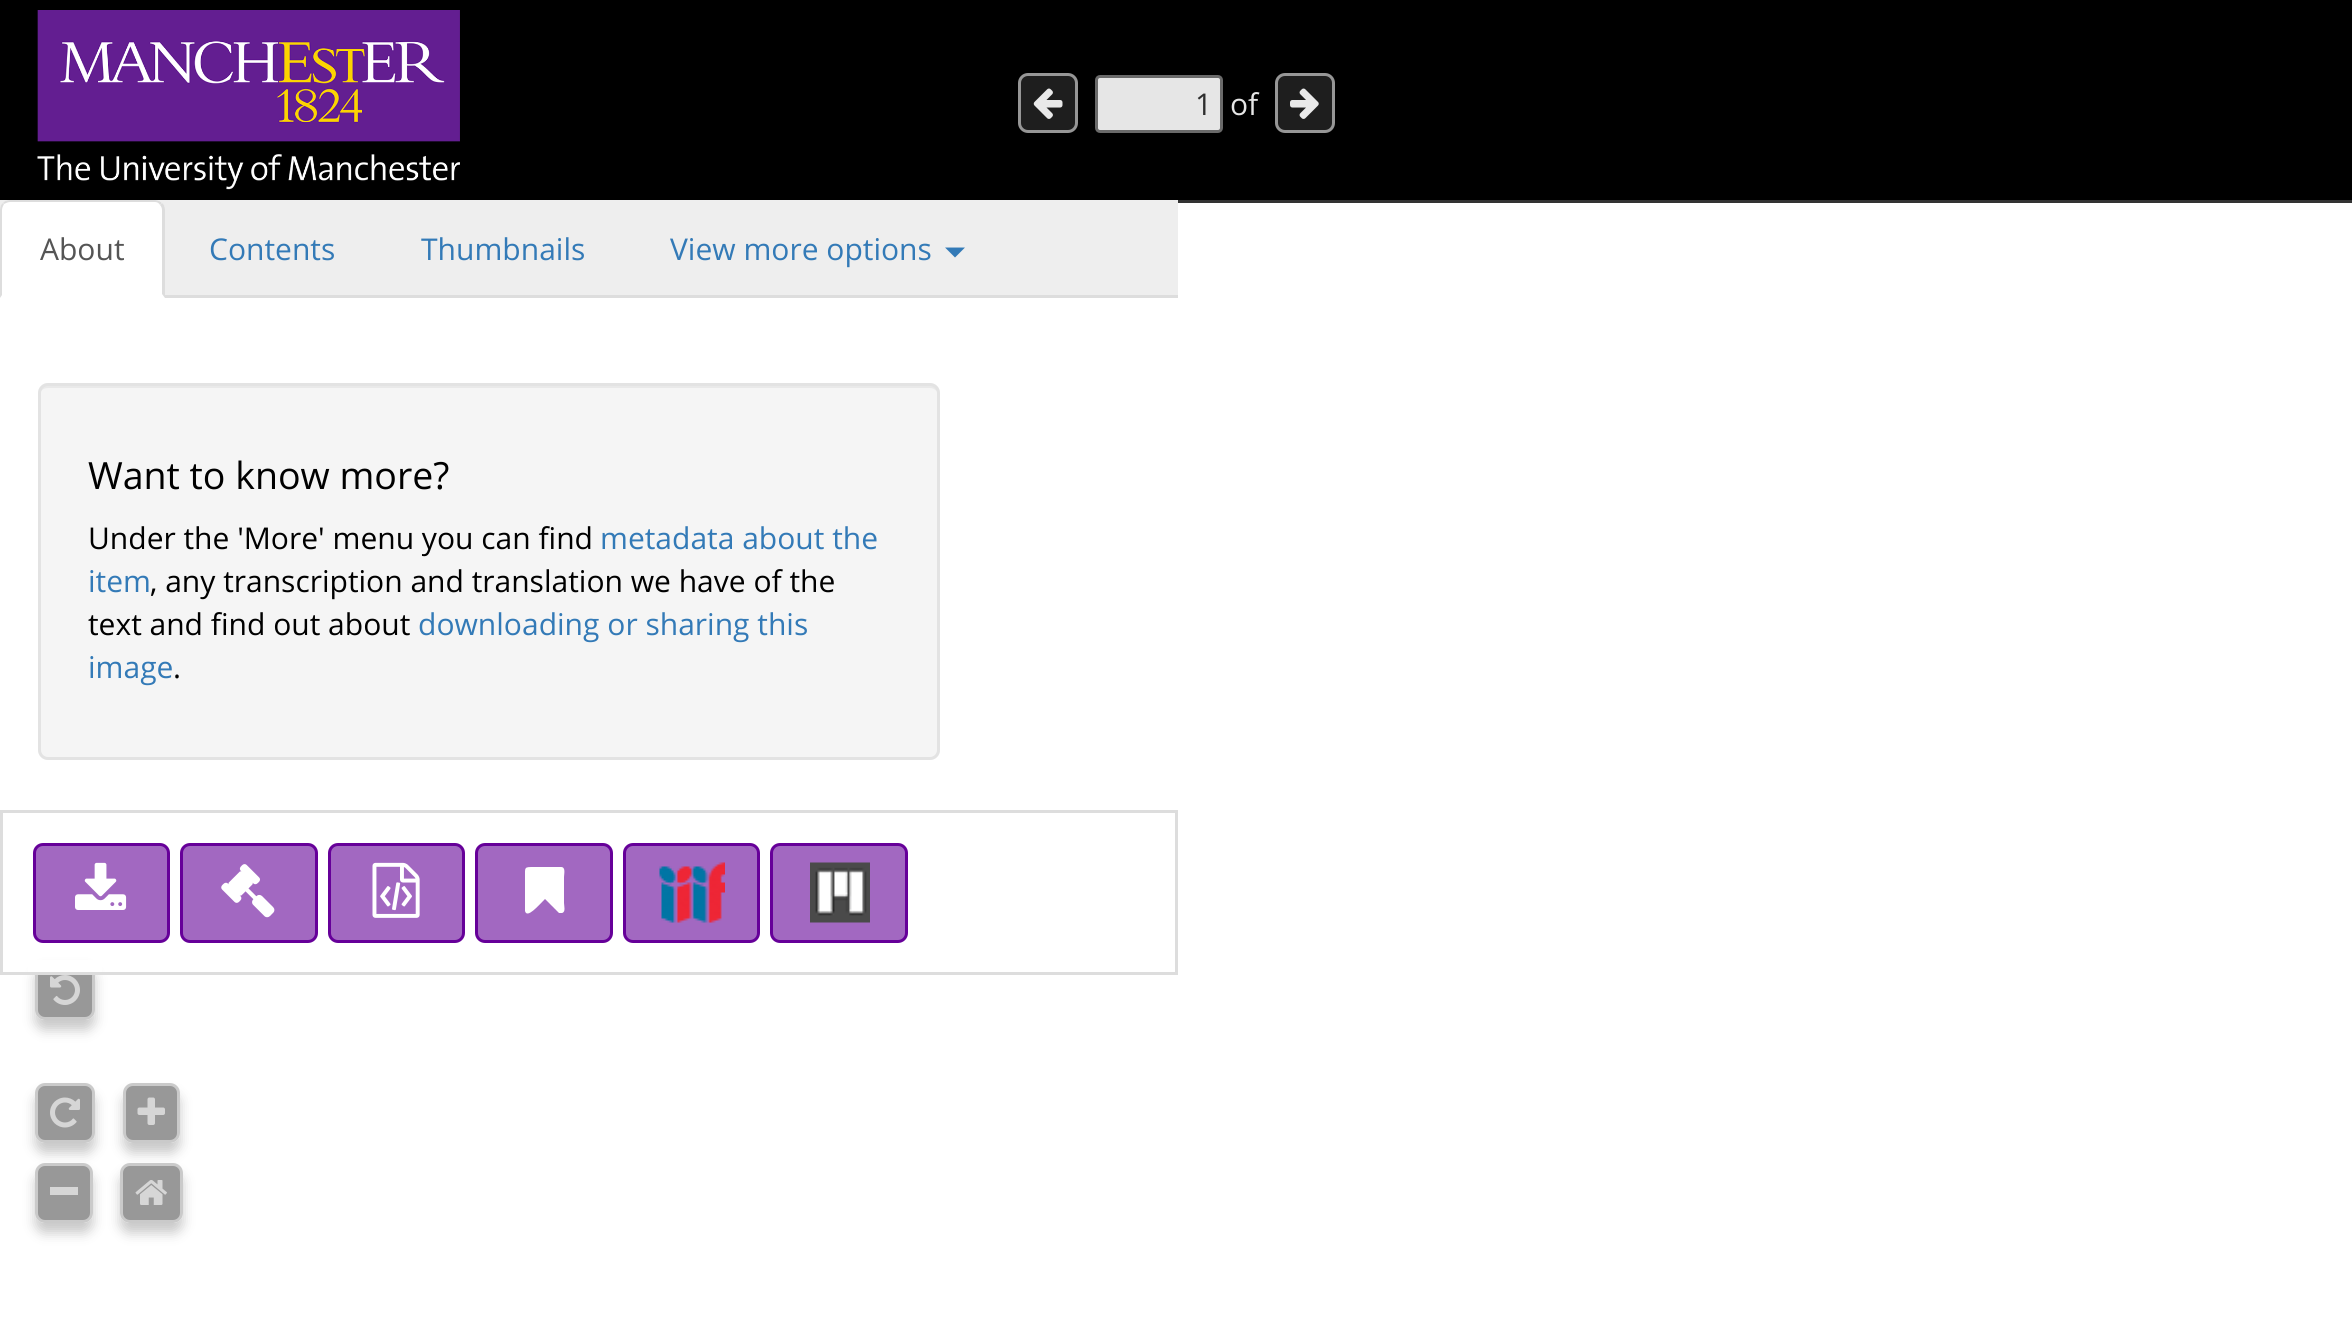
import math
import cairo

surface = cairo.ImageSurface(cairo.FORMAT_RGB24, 2352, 1324)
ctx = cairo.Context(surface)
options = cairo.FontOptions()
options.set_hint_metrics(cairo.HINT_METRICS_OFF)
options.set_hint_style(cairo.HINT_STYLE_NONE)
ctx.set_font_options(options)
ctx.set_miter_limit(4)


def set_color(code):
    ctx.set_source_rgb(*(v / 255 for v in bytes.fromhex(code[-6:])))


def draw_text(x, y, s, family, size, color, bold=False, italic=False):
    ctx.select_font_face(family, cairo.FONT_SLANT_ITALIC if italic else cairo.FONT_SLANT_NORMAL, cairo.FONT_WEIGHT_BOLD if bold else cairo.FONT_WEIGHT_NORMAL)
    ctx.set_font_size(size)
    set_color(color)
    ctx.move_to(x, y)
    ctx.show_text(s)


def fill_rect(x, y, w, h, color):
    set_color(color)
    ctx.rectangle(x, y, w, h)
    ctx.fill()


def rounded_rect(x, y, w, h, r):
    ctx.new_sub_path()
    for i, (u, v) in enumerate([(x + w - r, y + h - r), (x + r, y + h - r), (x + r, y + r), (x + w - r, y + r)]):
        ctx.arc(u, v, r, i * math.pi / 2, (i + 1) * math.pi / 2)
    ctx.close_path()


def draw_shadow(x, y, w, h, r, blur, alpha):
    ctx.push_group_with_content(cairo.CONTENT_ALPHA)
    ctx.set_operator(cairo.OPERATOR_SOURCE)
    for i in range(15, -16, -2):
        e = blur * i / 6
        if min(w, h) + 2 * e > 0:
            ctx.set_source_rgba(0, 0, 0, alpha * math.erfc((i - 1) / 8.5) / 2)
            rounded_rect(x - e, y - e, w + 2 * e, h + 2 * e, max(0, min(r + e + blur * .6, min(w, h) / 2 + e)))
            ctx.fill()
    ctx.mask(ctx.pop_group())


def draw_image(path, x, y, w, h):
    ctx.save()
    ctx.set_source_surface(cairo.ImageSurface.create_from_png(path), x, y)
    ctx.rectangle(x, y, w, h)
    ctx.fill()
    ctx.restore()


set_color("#ffffff")
ctx.paint()
fill_rect(0, 0, 2352, 200, "#000000")
fill_rect(1178, 200, 1174, 3, "#333333")
draw_image("assets/img1.png", 37, 10, 423, 180)
set_color("#1e1e1e")
rounded_rect(1019.5, 74.5, 57, 57, 8.5)
ctx.fill_preserve()
set_color("#969696")
ctx.set_line_width(3)
ctx.stroke()
draw_image("assets/img2.png", 1033, 88, 30, 31)
set_color("#e6e6e6")
rounded_rect(1096.5, 76.5, 125, 55, 3.5)
ctx.fill_preserve()
set_color("#6a6a6a")
ctx.stroke()
draw_text(1195, 115, "1", "Open Sans", 30, "#2e2e2e")
draw_text(1230, 115, "of", "Open Sans", 30, "#e6e6e6")
set_color("#1e1e1e")
rounded_rect(1276.5, 74.5, 57, 57, 8.5)
ctx.fill_preserve()
set_color("#969696")
ctx.stroke()
draw_image("assets/img3.png", 1290, 88, 29, 31)
fill_rect(0, 200, 1178, 95, "#eeeeee")
fill_rect(165, 295, 1013, 3, "#dddddd")
set_color("#ffffff")
ctx.new_path()
ctx.move_to(10, 200)
ctx.line_to(155, 200)
ctx.curve_to(160.5, 200, 165, 204.5, 165, 210)
ctx.line_to(165, 298)
ctx.line_to(0, 298)
ctx.line_to(0, 210)
ctx.curve_to(0, 204.5, 4.5, 200, 10, 200)
ctx.close_path()
ctx.fill()
set_color("#dddddd")
ctx.new_path()
ctx.move_to(10, 200)
ctx.curve_to(7, 200, 4, 201, 3, 203)
ctx.line_to(4, 204)
ctx.curve_to(6, 203, 8, 202, 10, 202)
ctx.line_to(155, 202)
ctx.curve_to(157, 202, 159, 203, 160, 205)
ctx.line_to(162, 203)
ctx.curve_to(160, 201, 158, 200, 155, 200)
ctx.close_path()
ctx.fill()
ctx.new_path()
ctx.move_to(165, 298)
ctx.line_to(165, 210)
ctx.curve_to(165, 207, 164, 204, 162, 203)
ctx.line_to(160, 205)
ctx.curve_to(161, 206, 162, 208, 162, 210)
ctx.line_to(162, 294)
ctx.close_path()
ctx.fill()
ctx.new_path()
ctx.move_to(0, 298)
ctx.line_to(2, 295)
ctx.line_to(2, 210)
ctx.curve_to(2, 208, 3, 206, 4, 204)
ctx.line_to(3, 203)
ctx.curve_to(1, 204, 0, 207, 0, 210)
ctx.close_path()
ctx.fill()
draw_text(40, 260, "About", "Open Sans", 30, "#555555")
draw_text(209, 260, "Contents", "Open Sans", 30, "#337ab7")
draw_text(421, 260, "Thumbnails", "Open Sans", 30, "#337ab7")
draw_text(670, 260, "View more options", "Open Sans", 30, "#337ab7")
ctx.new_path()
ctx.move_to(945, 247.5)
ctx.line_to(965, 247.5)
ctx.line_to(955, 257.5)
ctx.close_path()
ctx.fill()
set_color("#f5f5f5")
rounded_rect(38, 383, 902, 377, 10)
ctx.fill()
set_color("#e9e9e9")
ctx.new_path()
ctx.move_to(48, 388)
ctx.line_to(930, 388)
ctx.curve_to(934, 388, 938, 391, 938, 395)
ctx.line_to(938, 393)
ctx.curve_to(938, 389, 934, 385, 930, 385)
ctx.line_to(48, 385)
ctx.curve_to(44, 385, 40, 389, 40, 393)
ctx.line_to(40, 395)
ctx.curve_to(40, 391, 43, 388, 48, 388)
ctx.close_path()
ctx.fill()
rounded_rect(39.5, 384.5, 899, 374, 8.5)
set_color("#e3e3e3")
ctx.stroke()
draw_text(88, 489, "Want to know more?", "Open Sans", 37.5, "#000000")
draw_text(88, 549, "Under the 'More' menu you can find", "Open Sans", 30, "#000000")
draw_text(600, 549, "metadata about the", "Open Sans", 30, "#337ab7")
draw_text(88, 592, "item", "Open Sans", 30, "#337ab7")
draw_text(150, 592, ", any transcription and translation we have of the", "Open Sans", 30, "#000000")
draw_text(88, 635, "text and find out about", "Open Sans", 30, "#000000")
draw_text(418, 635, "downloading or sharing this", "Open Sans", 30, "#337ab7")
draw_text(88, 678, "image", "Open Sans", 30, "#337ab7")
draw_text(173, 678, ".", "Open Sans", 30, "#000000")
ctx.save()
ctx.set_fill_rule(cairo.FILL_RULE_EVEN_ODD)
ctx.new_path()
ctx.move_to(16, 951)
ctx.line_to(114, 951)
ctx.line_to(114, 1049)
ctx.line_to(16, 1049)
ctx.close_path()
ctx.move_to(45, 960)
ctx.line_to(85, 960)
ctx.curve_to(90.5, 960, 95, 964.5, 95, 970)
ctx.line_to(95, 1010)
ctx.curve_to(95, 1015.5, 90.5, 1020, 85, 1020)
ctx.line_to(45, 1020)
ctx.curve_to(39.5, 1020, 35, 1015.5, 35, 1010)
ctx.line_to(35, 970)
ctx.curve_to(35, 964.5, 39.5, 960, 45, 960)
ctx.close_path()
ctx.clip()
set_color("#666666")
draw_shadow(35, 970, 60, 60, 10, 6, 0.35)
ctx.restore()
ctx.set_source_rgba(0.498, 0.498, 0.498, 0.8)
rounded_rect(36.5, 961.5, 57, 57, 8.5)
ctx.fill_preserve()
set_color("#cacaca")
ctx.stroke()
fill_rect(28, 960, 74, 12, "#ffffff")
ctx.rectangle(1.5, 811.5, 1175, 162)
set_color("#dddddd")
ctx.stroke()
set_color("#a268c1")
rounded_rect(34.5, 844.5, 134, 97, 8.5)
ctx.fill_preserve()
set_color("#660099")
ctx.stroke()
draw_image("assets/img4.png", 75, 862, 52, 48)
set_color("#a268c1")
rounded_rect(181.5, 844.5, 135, 97, 8.5)
ctx.fill_preserve()
set_color("#660099")
ctx.stroke()
draw_image("assets/img5.png", 221, 864, 54, 54)
set_color("#a268c1")
rounded_rect(329.5, 844.5, 134, 97, 8.5)
ctx.fill_preserve()
set_color("#660099")
ctx.stroke()
draw_image("assets/img6.png", 372, 862, 48, 56)
set_color("#a268c1")
rounded_rect(476.5, 844.5, 135, 97, 8.5)
ctx.fill_preserve()
set_color("#660099")
ctx.stroke()
set_color("#ffffff")
ctx.new_path()
ctx.move_to(561, 867)
ctx.curve_to(566, 867, 564, 874, 564, 877)
ctx.line_to(564, 903)
ctx.curve_to(564, 906, 566, 912, 562, 913)
ctx.line_to(559, 913)
ctx.line_to(545, 899)
ctx.curve_to(538, 906, 527, 919, 525, 911)
ctx.line_to(525, 877)
ctx.curve_to(525, 867, 524, 867, 534, 867)
ctx.close_path()
ctx.fill()
set_color("#a268c1")
rounded_rect(624.5, 844.5, 134, 97, 8.5)
ctx.fill_preserve()
set_color("#660099")
ctx.stroke()
draw_image("assets/img7.png", 659, 862, 66, 61)
set_color("#a268c1")
rounded_rect(771.5, 844.5, 135, 97, 8.5)
ctx.fill_preserve()
set_color("#660099")
ctx.stroke()
draw_image("assets/img8.png", 810, 862, 60, 61)
draw_image("assets/img9.png", 50, 975, 30, 30)
ctx.save()
ctx.set_fill_rule(cairo.FILL_RULE_EVEN_ODD)
ctx.new_path()
ctx.move_to(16, 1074)
ctx.line_to(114, 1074)
ctx.line_to(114, 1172)
ctx.line_to(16, 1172)
ctx.close_path()
ctx.move_to(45, 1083)
ctx.line_to(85, 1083)
ctx.curve_to(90.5, 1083, 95, 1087.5, 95, 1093)
ctx.line_to(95, 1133)
ctx.curve_to(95, 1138.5, 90.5, 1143, 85, 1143)
ctx.line_to(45, 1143)
ctx.curve_to(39.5, 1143, 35, 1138.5, 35, 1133)
ctx.line_to(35, 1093)
ctx.curve_to(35, 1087.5, 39.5, 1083, 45, 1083)
ctx.close_path()
ctx.clip()
set_color("#666666")
draw_shadow(35, 1093, 60, 60, 10, 6, 0.35)
ctx.restore()
ctx.set_source_rgba(0.498, 0.498, 0.498, 0.8)
rounded_rect(36.5, 1084.5, 57, 57, 8.5)
ctx.fill_preserve()
set_color("#cacaca")
ctx.stroke()
draw_image("assets/img10.png", 50, 1097, 30, 31)
ctx.save()
ctx.set_fill_rule(cairo.FILL_RULE_EVEN_ODD)
ctx.new_path()
ctx.move_to(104, 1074)
ctx.line_to(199, 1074)
ctx.line_to(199, 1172)
ctx.line_to(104, 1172)
ctx.close_path()
ctx.move_to(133, 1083)
ctx.line_to(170, 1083)
ctx.curve_to(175.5, 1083, 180, 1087.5, 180, 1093)
ctx.line_to(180, 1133)
ctx.curve_to(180, 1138.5, 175.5, 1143, 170, 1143)
ctx.line_to(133, 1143)
ctx.curve_to(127.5, 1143, 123, 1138.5, 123, 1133)
ctx.line_to(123, 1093)
ctx.curve_to(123, 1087.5, 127.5, 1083, 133, 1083)
ctx.close_path()
ctx.clip()
set_color("#666666")
draw_shadow(123, 1093, 57, 60, 10, 6, 0.35)
ctx.restore()
ctx.set_source_rgba(0.498, 0.498, 0.498, 0.8)
rounded_rect(124.5, 1084.5, 54, 57, 8.5)
ctx.fill_preserve()
set_color("#cacaca")
ctx.stroke()
draw_image("assets/img11.png", 137, 1097, 28, 28)
ctx.save()
ctx.set_fill_rule(cairo.FILL_RULE_EVEN_ODD)
ctx.new_path()
ctx.move_to(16, 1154)
ctx.line_to(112, 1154)
ctx.line_to(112, 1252)
ctx.line_to(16, 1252)
ctx.close_path()
ctx.move_to(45, 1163)
ctx.line_to(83, 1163)
ctx.curve_to(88.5, 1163, 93, 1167.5, 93, 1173)
ctx.line_to(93, 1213)
ctx.curve_to(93, 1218.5, 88.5, 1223, 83, 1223)
ctx.line_to(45, 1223)
ctx.curve_to(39.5, 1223, 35, 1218.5, 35, 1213)
ctx.line_to(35, 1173)
ctx.curve_to(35, 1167.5, 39.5, 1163, 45, 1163)
ctx.close_path()
ctx.clip()
set_color("#666666")
draw_shadow(35, 1173, 58, 60, 10, 6, 0.35)
ctx.restore()
ctx.set_source_rgba(0.498, 0.498, 0.498, 0.8)
rounded_rect(36.5, 1164.5, 55, 57, 8.5)
ctx.fill_preserve()
set_color("#cacaca")
ctx.stroke()
fill_rect(50, 1187, 28, 8, "#d6d6d6")
ctx.save()
ctx.set_fill_rule(cairo.FILL_RULE_EVEN_ODD)
ctx.new_path()
ctx.move_to(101, 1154)
ctx.line_to(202, 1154)
ctx.line_to(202, 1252)
ctx.line_to(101, 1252)
ctx.close_path()
ctx.move_to(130, 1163)
ctx.line_to(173, 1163)
ctx.curve_to(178.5, 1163, 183, 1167.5, 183, 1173)
ctx.line_to(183, 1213)
ctx.curve_to(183, 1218.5, 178.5, 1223, 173, 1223)
ctx.line_to(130, 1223)
ctx.curve_to(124.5, 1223, 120, 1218.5, 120, 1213)
ctx.line_to(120, 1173)
ctx.curve_to(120, 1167.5, 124.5, 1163, 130, 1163)
ctx.close_path()
ctx.clip()
set_color("#666666")
draw_shadow(120, 1173, 63, 60, 10, 6, 0.35)
ctx.restore()
ctx.set_source_rgba(0.498, 0.498, 0.498, 0.8)
rounded_rect(121.5, 1164.5, 60, 57, 8.5)
ctx.fill_preserve()
set_color("#cacaca")
ctx.stroke()
draw_image("assets/img12.png", 135, 1180, 32, 25)
surface.write_to_png("output.png")
